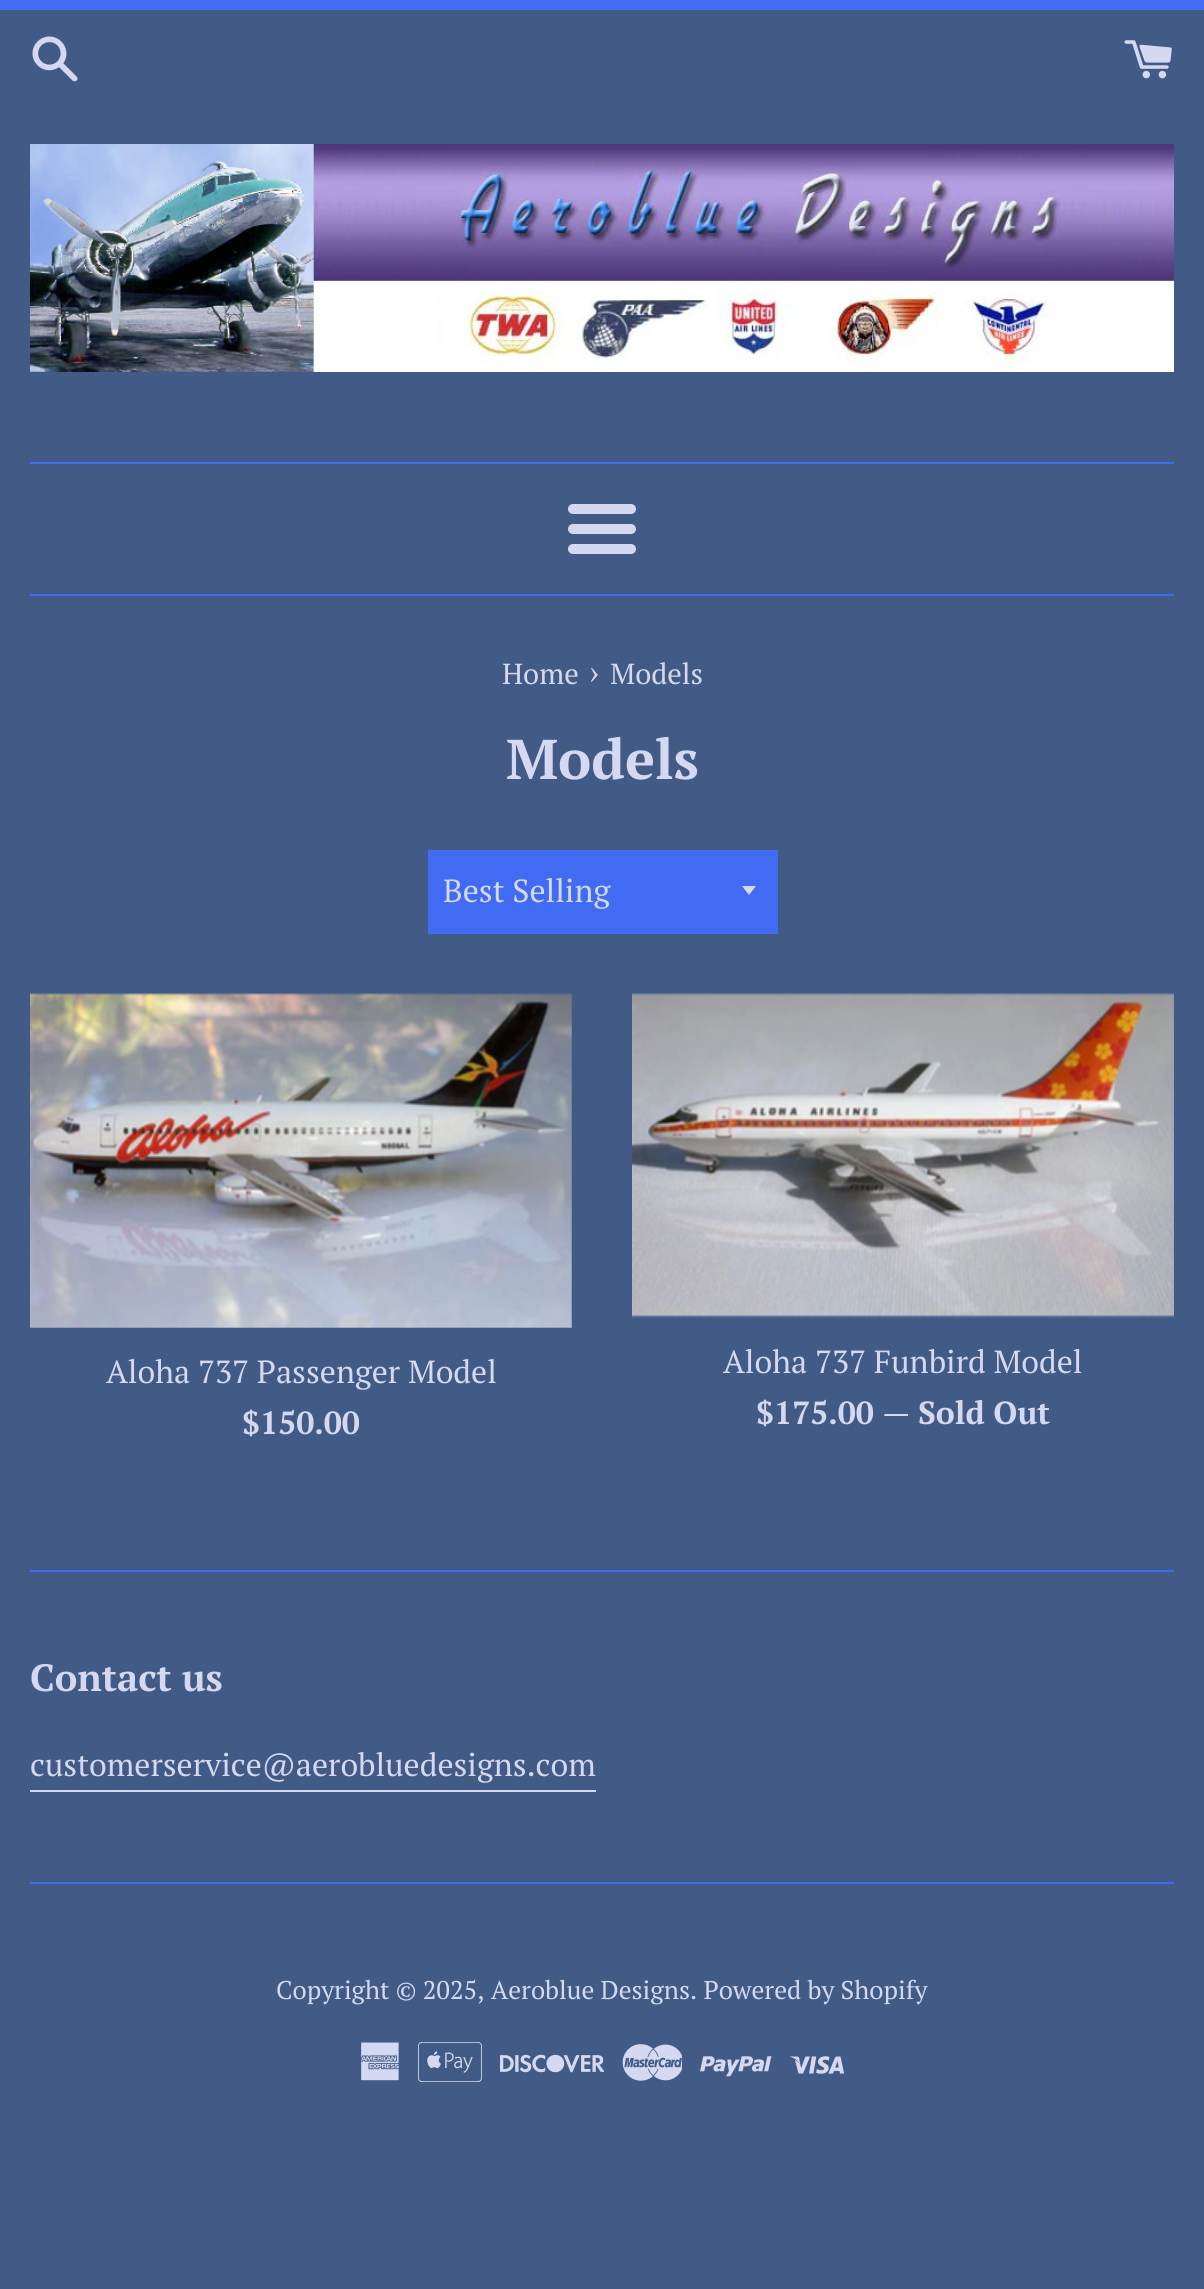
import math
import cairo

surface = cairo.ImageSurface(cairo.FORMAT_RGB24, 1204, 2289)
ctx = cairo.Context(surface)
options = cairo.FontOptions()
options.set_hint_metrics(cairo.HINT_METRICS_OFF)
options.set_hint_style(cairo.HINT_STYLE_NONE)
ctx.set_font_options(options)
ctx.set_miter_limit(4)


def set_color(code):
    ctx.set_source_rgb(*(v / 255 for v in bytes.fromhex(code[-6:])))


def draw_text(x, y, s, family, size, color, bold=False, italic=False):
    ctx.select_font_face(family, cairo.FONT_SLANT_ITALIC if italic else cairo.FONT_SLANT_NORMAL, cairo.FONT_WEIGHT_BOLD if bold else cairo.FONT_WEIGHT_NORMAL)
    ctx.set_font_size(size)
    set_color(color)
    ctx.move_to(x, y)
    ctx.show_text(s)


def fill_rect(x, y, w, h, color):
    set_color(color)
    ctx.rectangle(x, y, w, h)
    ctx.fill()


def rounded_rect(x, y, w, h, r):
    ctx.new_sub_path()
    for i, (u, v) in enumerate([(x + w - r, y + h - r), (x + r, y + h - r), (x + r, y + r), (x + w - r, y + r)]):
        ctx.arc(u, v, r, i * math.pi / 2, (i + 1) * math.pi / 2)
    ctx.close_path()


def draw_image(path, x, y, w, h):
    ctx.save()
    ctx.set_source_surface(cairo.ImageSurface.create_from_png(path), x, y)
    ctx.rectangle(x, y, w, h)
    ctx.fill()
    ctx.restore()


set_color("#425b86")
ctx.paint()
fill_rect(0, 0, 1204, 10, "#426bf4")
draw_image("assets/img1.png", 32, 36, 46, 46)
draw_image("assets/img2.png", 1124, 40, 48, 39)
draw_image("assets/img3.png", 30, 144, 1144, 228)
fill_rect(30, 462, 1144, 2, "#426bf4")
set_color("#d4d8f0")
rounded_rect(568, 504, 68, 10, 5)
ctx.fill()
rounded_rect(568, 524, 68, 10, 5)
ctx.fill()
rounded_rect(568, 544, 68, 10, 5)
ctx.fill()
fill_rect(30, 594, 1144, 2, "#426bf4")
draw_text(502, 684, "Home", "PT Serif", 29, "#d4d8f0")
draw_text(589, 684, "›", "PT Serif", 35, "#d4d8f0")
draw_text(610, 684, "Models", "PT Serif", 29, "#d4d8f0")
draw_text(506, 779, "Models", "PT Serif", 56, "#d4d8f0", bold=True)
fill_rect(428, 850, 350, 84, "#426bf4")
set_color("#d4d8f0")
ctx.new_path()
ctx.move_to(742, 886)
ctx.line_to(749, 895)
ctx.line_to(756, 886)
ctx.close_path()
ctx.fill()
draw_text(443, 902, "Best Selling", "PT Serif", 32, "#d4d8f0")
draw_image("assets/img4.png", 30, 993, 542, 335)
draw_text(106, 1383, "Aloha 737 Passenger Model", "PT Serif", 32, "#d4d8f0")
draw_text(242, 1434, "$150.00", "PT Serif", 32, "#d4d8f0", bold=True)
draw_image("assets/img5.png", 632, 993, 542, 325)
draw_text(723, 1373, "Aloha 737 Funbird Model", "PT Serif", 32, "#d4d8f0")
draw_text(756, 1424, "$175.00", "PT Serif", 32, "#d4d8f0", bold=True)
draw_text(882, 1424, "—", "PT Serif", 32, "#d4d8f0")
draw_text(918, 1424, "Sold Out", "PT Serif", 32, "#d4d8f0", bold=True)
fill_rect(30, 1570, 1144, 2, "#426bf4")
draw_text(30, 1691, "Contact us", "PT Serif", 38, "#d4d8f0", bold=True)
draw_text(30, 1776, "customerservice@aerobluedesigns.com", "PT Serif", 32, "#d4d8f0")
fill_rect(30, 1790, 566, 2, "#d4d8f0")
fill_rect(30, 1882, 1144, 2, "#426bf4")
draw_text(276, 1999, "Copyright © 2025, Aeroblue Designs. Powered by Shopify", "PT Serif", 25.6, "#d4d8f0")
draw_image("assets/img6.png", 361, 2042, 38, 39)
draw_image("assets/img7.png", 418, 2042, 64, 40)
draw_image("assets/img8.png", 500, 2054, 104, 19)
draw_image("assets/img9.png", 622, 2044, 60, 37)
draw_image("assets/img10.png", 700, 2056, 72, 21)
draw_image("assets/img11.png", 790, 2056, 54, 18)
surface.write_to_png("output.png")
